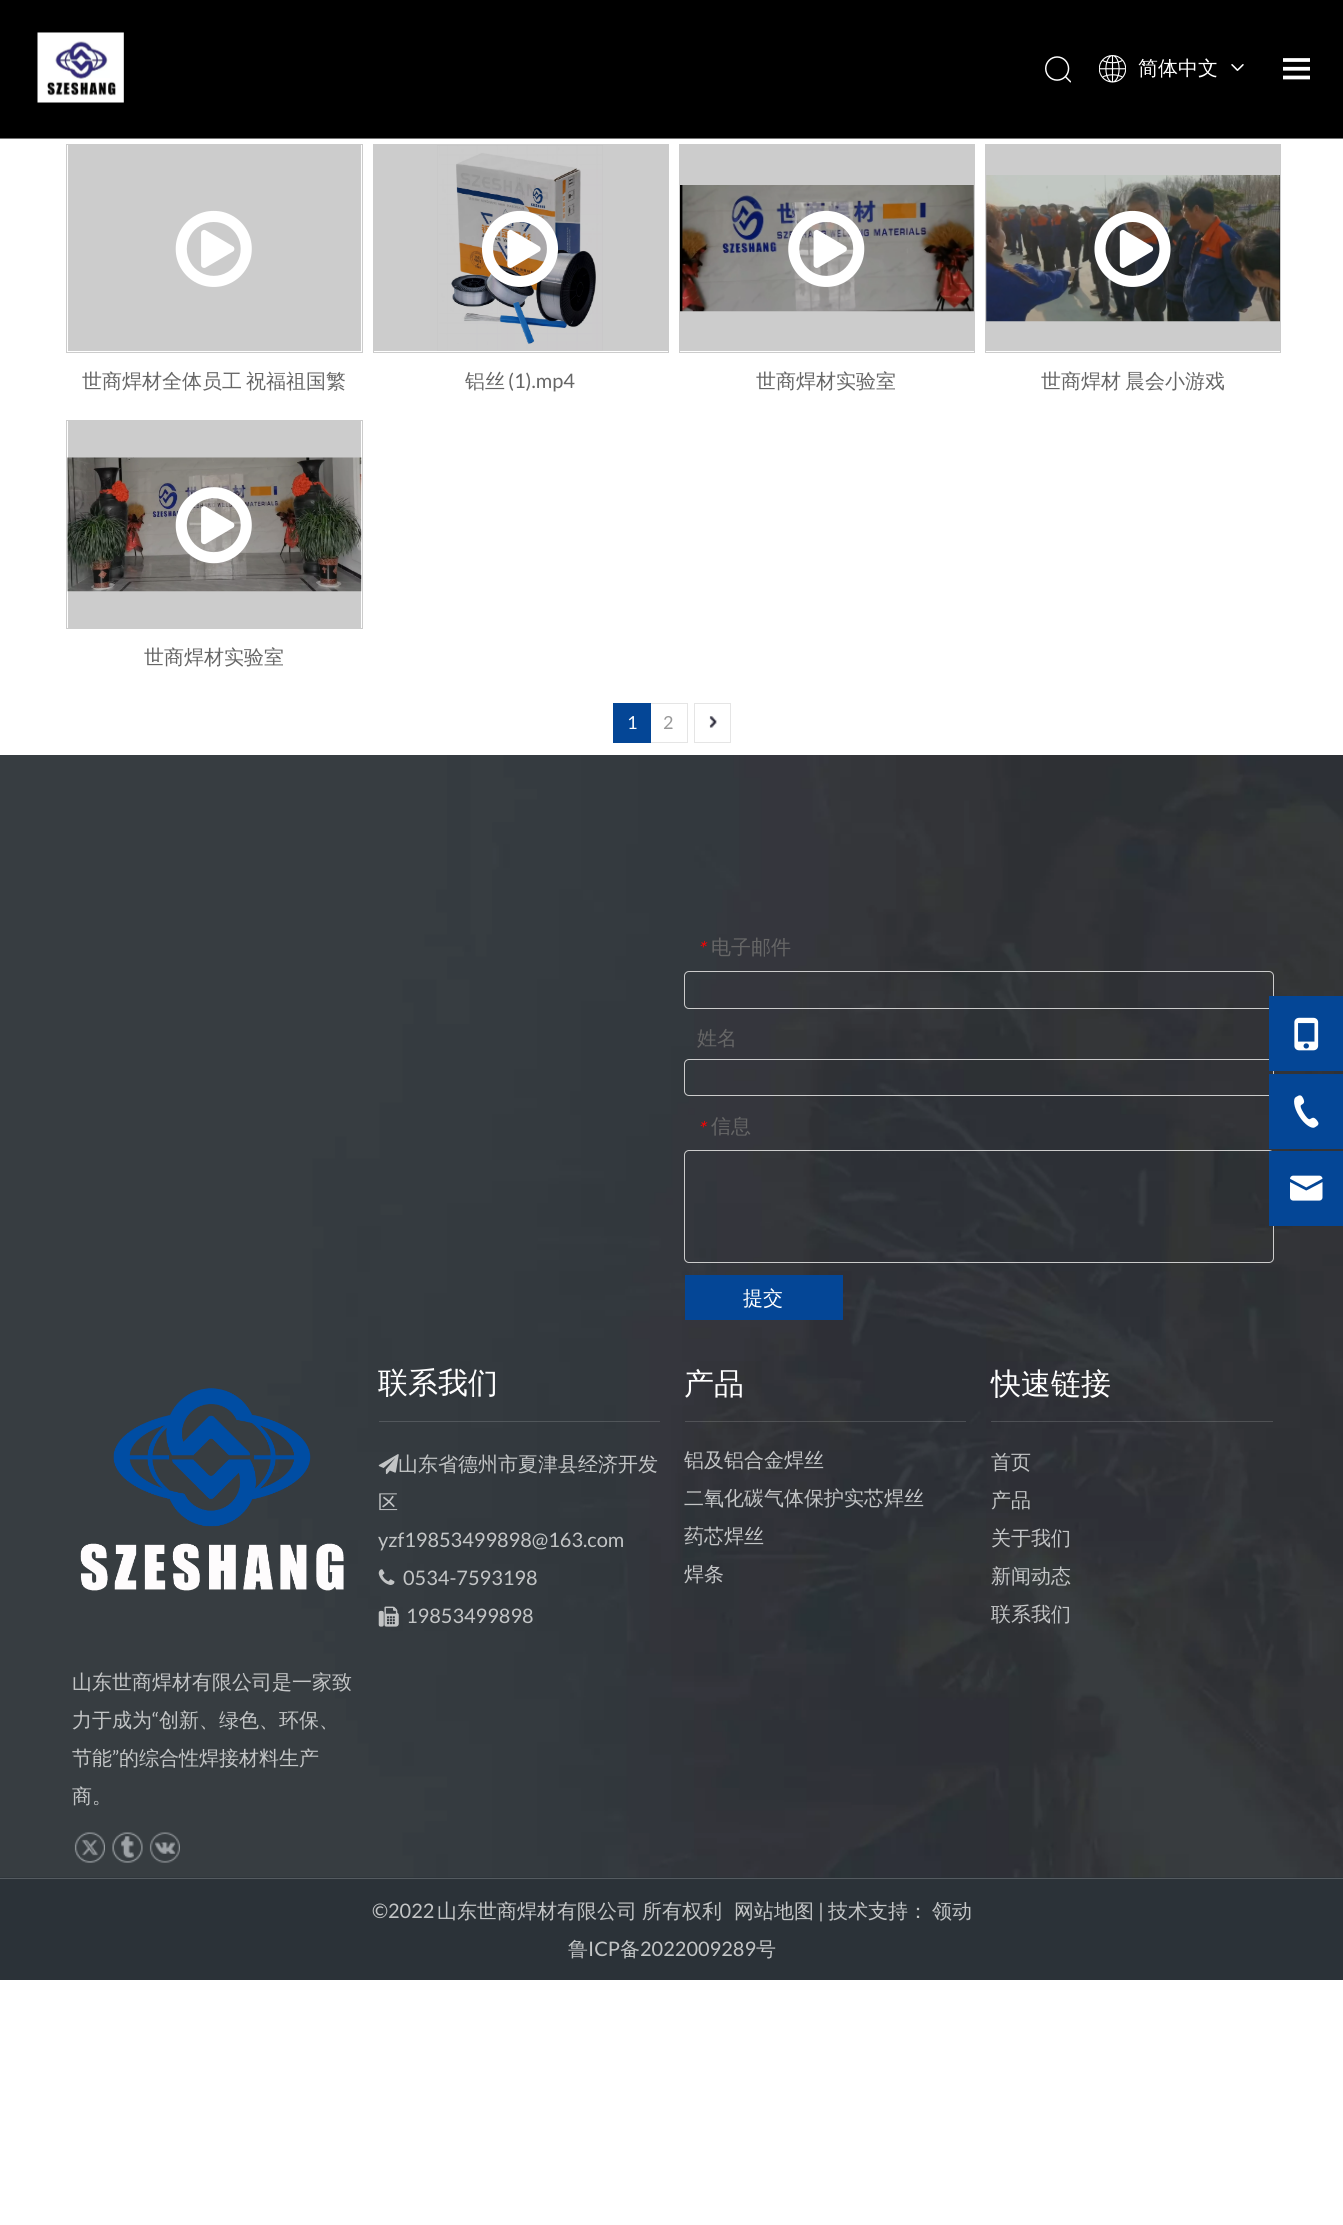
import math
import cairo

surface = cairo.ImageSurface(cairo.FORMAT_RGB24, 1343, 2225)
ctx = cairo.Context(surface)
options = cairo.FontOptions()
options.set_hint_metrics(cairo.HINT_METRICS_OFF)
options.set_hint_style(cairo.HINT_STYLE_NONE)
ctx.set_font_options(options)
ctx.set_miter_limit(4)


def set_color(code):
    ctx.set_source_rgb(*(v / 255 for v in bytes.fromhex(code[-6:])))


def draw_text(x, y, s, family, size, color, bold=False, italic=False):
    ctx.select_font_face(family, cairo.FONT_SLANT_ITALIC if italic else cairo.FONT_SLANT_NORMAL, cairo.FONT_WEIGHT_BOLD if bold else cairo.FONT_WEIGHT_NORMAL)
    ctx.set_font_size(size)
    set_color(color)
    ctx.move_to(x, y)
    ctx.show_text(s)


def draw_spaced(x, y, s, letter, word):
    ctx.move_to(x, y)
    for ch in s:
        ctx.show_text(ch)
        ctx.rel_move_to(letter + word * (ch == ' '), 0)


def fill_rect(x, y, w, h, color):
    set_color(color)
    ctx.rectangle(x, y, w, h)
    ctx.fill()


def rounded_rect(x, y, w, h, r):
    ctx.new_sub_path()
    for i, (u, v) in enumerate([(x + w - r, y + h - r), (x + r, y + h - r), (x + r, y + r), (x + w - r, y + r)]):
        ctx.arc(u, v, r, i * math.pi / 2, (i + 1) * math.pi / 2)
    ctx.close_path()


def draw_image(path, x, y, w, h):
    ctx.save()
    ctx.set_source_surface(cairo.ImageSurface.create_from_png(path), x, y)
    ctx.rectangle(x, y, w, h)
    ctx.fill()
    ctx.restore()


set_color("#ffffff")
ctx.paint()
fill_rect(0, 0, 1343, 138, "#000000")
fill_rect(0, 138, 1343, 1, "#737373")
draw_image("assets/img1.png", 37, 32, 87, 71)
draw_image("assets/img2.png", 1045, 56, 26, 27)
draw_image("assets/img3.png", 1099, 55, 27, 28)
draw_text(1138, 75, "简体中文", "WenQuanYi Zen Hei Medium", 20, "#ffffff")
draw_image("assets/img4.png", 1231, 64, 13, 7)
draw_image("assets/img5.png", 1283, 58, 27, 22)
ctx.rectangle(66.5, 144.5, 296, 208)
set_color("#cccccc")
ctx.set_line_width(1)
ctx.stroke()
fill_rect(68, 145, 293, 206, "#cccccc")
draw_image("assets/img6.png", 175, 210, 77, 77)
set_color("#666666")
draw_spaced(82, 388, "世商焊材全体员工 祝福祖国繁", 0, -2)
fill_rect(374, 145, 294, 206, "#cccccc")
ctx.rectangle(373.5, 144.5, 295, 208)
ctx.stroke()
draw_image("assets/img7.png", 437, 145, 166, 206)
draw_image("assets/img8.png", 481, 210, 77, 77)
draw_text(465, 388, "铝丝", "WenQuanYi Zen Hei Medium", 20, "#666666")
draw_text(508, 388, "(1).mp4", "Lato", 20, "#666666")
fill_rect(680, 145, 294, 206, "#cccccc")
ctx.rectangle(679.5, 144.5, 295, 208)
ctx.stroke()
draw_image("assets/img9.png", 680, 185, 294, 127)
draw_image("assets/img10.png", 788, 210, 77, 77)
draw_text(756, 388, "世商焊材实验室", "WenQuanYi Zen Hei Medium", 20, "#666666")
fill_rect(986, 145, 294, 206, "#cccccc")
ctx.rectangle(985.5, 144.5, 295, 208)
ctx.stroke()
draw_image("assets/img11.png", 986, 175, 294, 147)
draw_image("assets/img12.png", 1094, 210, 77, 77)
set_color("#666666")
draw_spaced(1041, 388, "世商焊材 晨会小游戏", 0, -2)
fill_rect(68, 421, 293, 207, "#cccccc")
ctx.rectangle(66.5, 420.5, 296, 208)
ctx.stroke()
draw_image("assets/img13.png", 67, 457, 295, 135)
draw_image("assets/img14.png", 175, 487, 77, 77)
draw_text(144, 664, "世商焊材实验室", "WenQuanYi Zen Hei Medium", 20, "#666666")
ctx.rectangle(650.5, 703.5, 37, 39)
set_color("#e5e5e5")
ctx.stroke()
fill_rect(613, 703, 38, 40, "#044696")
draw_text(627, 729, "1", "Lato", 18, "#ffffff")
draw_text(663, 729, "2", "Lato", 18, "#989898")
draw_image("assets/img15.png", 709, 716, 8, 12)
ctx.rectangle(694.5, 703.5, 36, 39)
set_color("#e5e5e5")
ctx.stroke()
fill_rect(0, 1877, 1343, 1, "#2b3238")
draw_image("assets/img16.png", 0, 755, 1343, 1123)
draw_text(697, 956, "*", "Lato", 20, "#ff0000", italic=True)
draw_text(711, 954, "电子邮件", "WenQuanYi Zen Hei Medium", 20, "#666666")
rounded_rect(684.5, 971.5, 589, 37, 4.5)
set_color("#cccccc")
ctx.stroke()
draw_text(697, 1045, "姓名", "WenQuanYi Zen Hei Medium", 20, "#666666")
rounded_rect(684.5, 1059.5, 589, 36, 4.5)
set_color("#cccccc")
ctx.stroke()
draw_text(697, 1136, "*", "Lato", 20, "#ff0000", italic=True)
draw_text(711, 1133, "信息", "WenQuanYi Zen Hei Medium", 20, "#666666")
rounded_rect(684.5, 1150.5, 589, 112, 4.5)
set_color("#cccccc")
ctx.stroke()
fill_rect(685, 1275, 158, 45, "#044696")
draw_text(743, 1305, "提交", "WenQuanYi Zen Hei Medium", 20, "#ffffff")
fill_rect(1269, 996, 74, 75, "#044696")
draw_image("assets/img17.png", 1294, 1017, 25, 34)
fill_rect(1269, 1074, 74, 75, "#044696")
draw_image("assets/img18.png", 1294, 1095, 25, 33)
fill_rect(1269, 1151, 74, 75, "#044696")
draw_image("assets/img19.png", 1290, 1175, 33, 26)
ctx.set_source_rgba(1, 1, 1, 0.15)
ctx.rectangle(379, 1421, 281, 1)
ctx.fill()
draw_text(378, 1393, "联系我们", "WenQuanYi Zen Hei Medium", 30, "#ffffff")
draw_image("assets/img20.png", 378, 1454, 21, 21)
draw_text(398, 1471, "山东省德州市夏津县经济开发", "WenQuanYi Zen Hei Medium", 20, "#c3c5c6")
draw_text(378, 1509, "区", "WenQuanYi Zen Hei Medium", 20, "#c3c5c6")
draw_text(378, 1547, "yzf19853499898@163.com", "Lato", 20, "#c3c5c6")
draw_image("assets/img21.png", 378, 1569, 17, 16)
draw_text(403, 1585, "0534-7593198", "Lato", 20, "#c3c5c6")
draw_image("assets/img22.png", 378, 1606, 21, 21)
draw_text(406, 1623, "19853499898", "Lato", 20, "#c3c5c6")
ctx.set_source_rgba(1, 1, 1, 0.15)
ctx.rectangle(685, 1421, 281, 1)
ctx.fill()
draw_text(684, 1394, "产品", "WenQuanYi Zen Hei Medium", 30, "#ffffff")
draw_text(684, 1467, "铝及铝合金焊丝", "WenQuanYi Zen Hei Medium", 20, "#c3c5c6")
draw_text(684, 1505, "二氧化碳气体保护实芯焊丝", "WenQuanYi Zen Hei Medium", 20, "#c3c5c6")
draw_text(684, 1543, "药芯焊丝", "WenQuanYi Zen Hei Medium", 20, "#c3c5c6")
draw_text(684, 1581, "焊条", "WenQuanYi Zen Hei Medium", 20, "#c3c5c6")
ctx.set_source_rgba(1, 1, 1, 0.15)
ctx.rectangle(991, 1421, 282, 1)
ctx.fill()
draw_text(991, 1394, "快速链接", "WenQuanYi Zen Hei Medium", 30, "#ffffff")
draw_text(991, 1469, "首页", "WenQuanYi Zen Hei Medium", 20, "#c3c5c6")
draw_text(991, 1507, "产品", "WenQuanYi Zen Hei Medium", 20, "#c3c5c6")
draw_text(991, 1545, "关于我们", "WenQuanYi Zen Hei Medium", 20, "#c3c5c6")
draw_text(991, 1583, "新闻动态", "WenQuanYi Zen Hei Medium", 20, "#c3c5c6")
draw_text(991, 1621, "联系我们", "WenQuanYi Zen Hei Medium", 20, "#c3c5c6")
draw_image("assets/img23.png", 80, 1388, 264, 203)
draw_text(72, 1689, "山东世商焊材有限公司是一家致", "WenQuanYi Zen Hei Medium", 20, "#c3c5c6")
draw_text(72, 1727, "力于成为", "WenQuanYi Zen Hei Medium", 20, "#c3c5c6")
draw_text(152, 1727, "“", "Lato", 20, "#c3c5c6")
draw_text(159, 1727, "创新、绿色、环保、", "WenQuanYi Zen Hei Medium", 20, "#c3c5c6")
draw_text(72, 1765, "节能", "WenQuanYi Zen Hei Medium", 20, "#c3c5c6")
draw_text(112, 1765, "”", "Lato", 20, "#c3c5c6")
draw_text(119, 1765, "的综合性焊接材料生产", "WenQuanYi Zen Hei Medium", 20, "#c3c5c6")
draw_text(72, 1803, "商。", "WenQuanYi Zen Hei Medium", 20, "#c3c5c6")
draw_image("assets/img24.png", 74, 1832, 31, 31)
draw_image("assets/img25.png", 112, 1832, 31, 31)
draw_image("assets/img26.png", 149, 1832, 31, 31)
fill_rect(0, 1879, 1343, 101, "#2b3238")
fill_rect(0, 1878, 1343, 1, "#555b60")
draw_text(372, 1918, "©2022", "Lato", 20, "#c3c5c6")
ctx.select_font_face("WenQuanYi Zen Hei Medium")
draw_spaced(437, 1918, "山东世商焊材有限公司 所有权利", 0, -1)
draw_text(734, 1918, "网站地图", "WenQuanYi Zen Hei Medium", 20, "#c3c5c6")
draw_text(818, 1918, "|", "Lato", 20, "#c3c5c6")
draw_text(828, 1918, "技术支持：", "WenQuanYi Zen Hei Medium", 20, "#c3c5c6")
draw_text(932, 1918, "领动", "WenQuanYi Zen Hei Medium", 20, "#c3c5c6")
draw_text(568, 1956, "鲁", "WenQuanYi Zen Hei Medium", 20, "#c3c5c6")
draw_text(588, 1956, "ICP", "Lato", 20, "#c3c5c6")
draw_text(620, 1956, "备", "WenQuanYi Zen Hei Medium", 20, "#c3c5c6")
draw_text(640, 1956, "2022009289", "Lato", 20, "#c3c5c6")
draw_text(756, 1956, "号", "WenQuanYi Zen Hei Medium", 20, "#c3c5c6")
surface.write_to_png("output.png")
